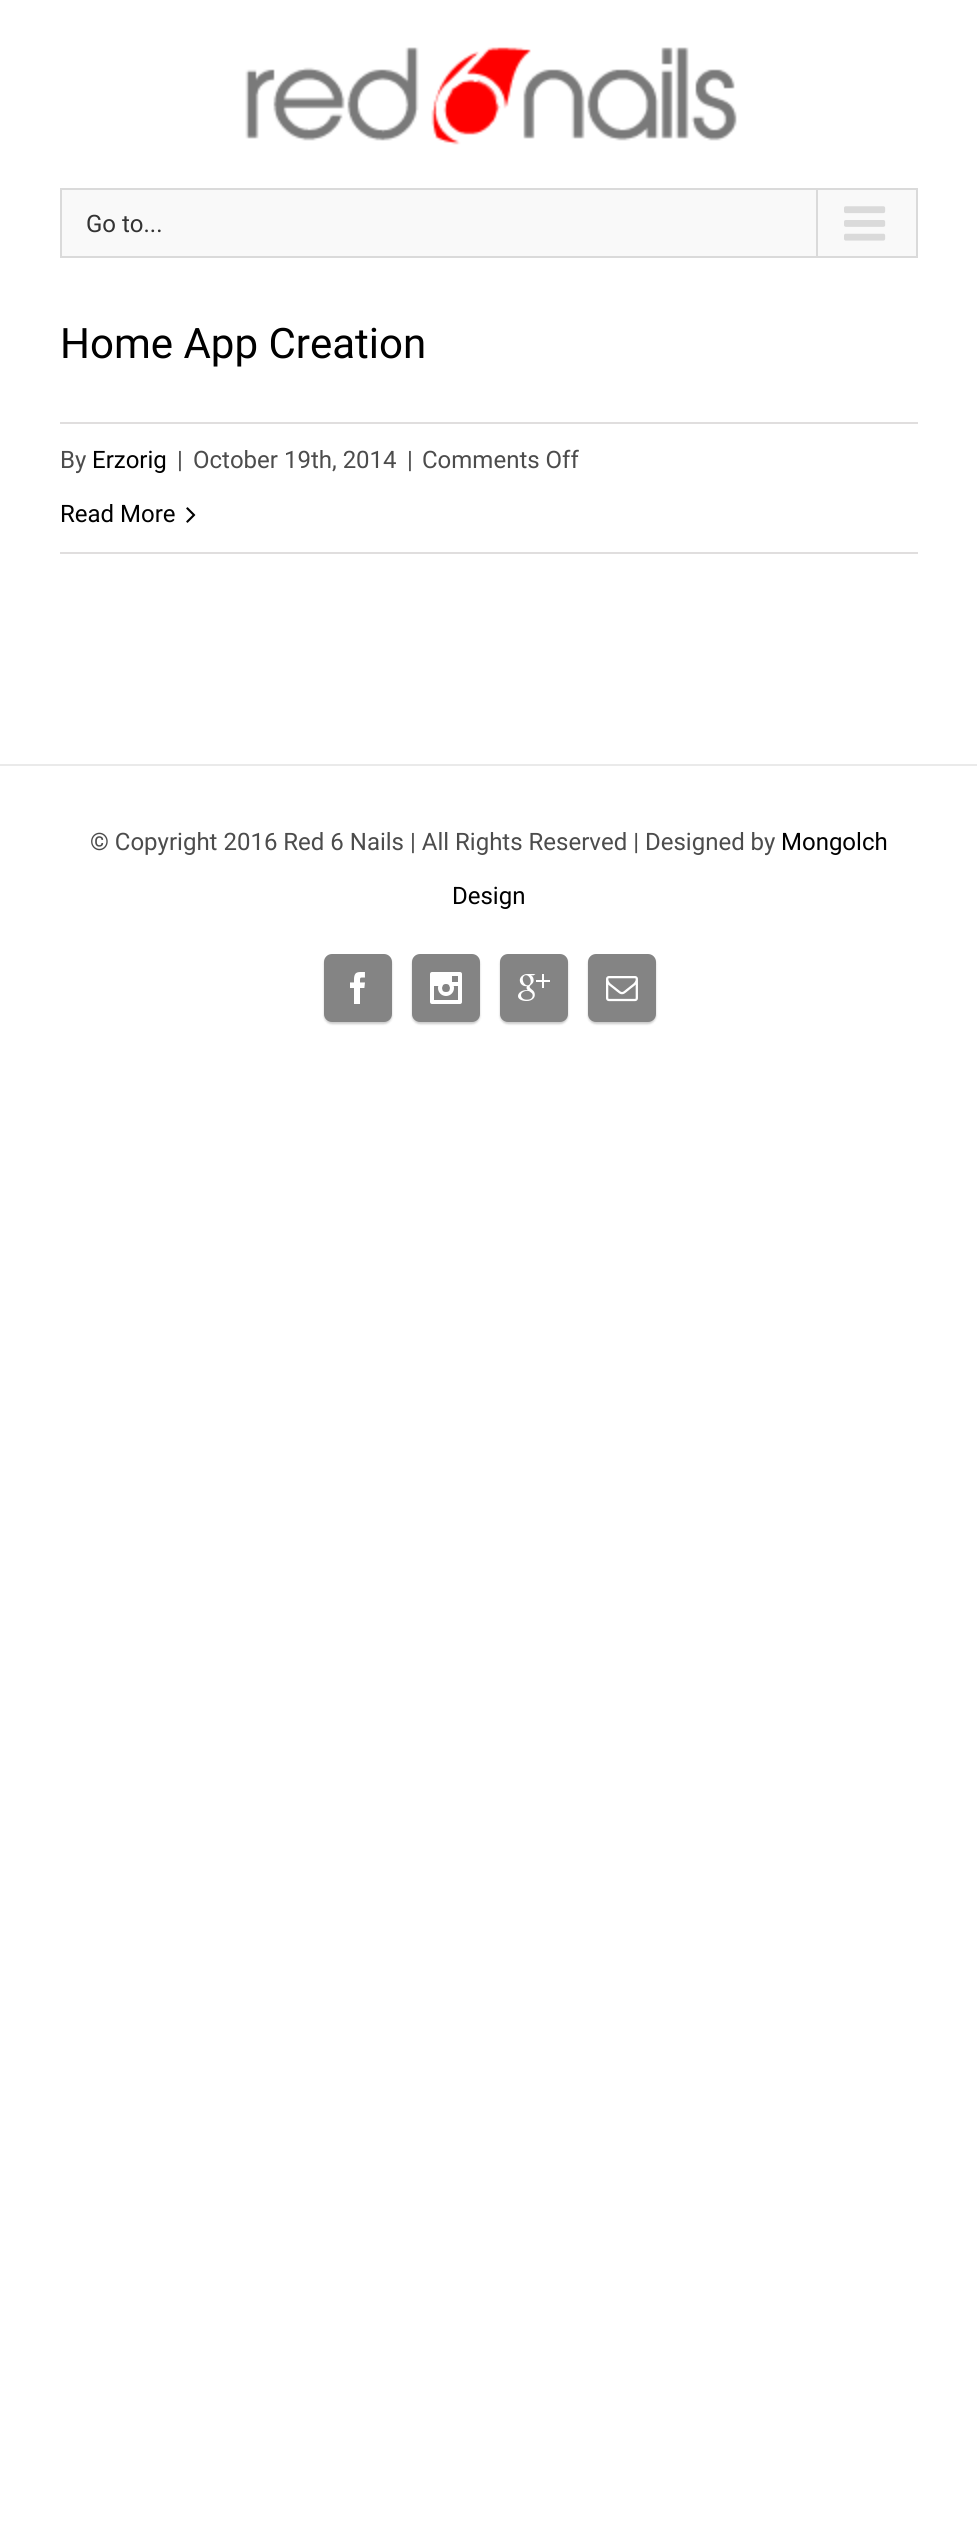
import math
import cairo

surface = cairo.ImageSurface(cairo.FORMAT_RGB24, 977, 2533)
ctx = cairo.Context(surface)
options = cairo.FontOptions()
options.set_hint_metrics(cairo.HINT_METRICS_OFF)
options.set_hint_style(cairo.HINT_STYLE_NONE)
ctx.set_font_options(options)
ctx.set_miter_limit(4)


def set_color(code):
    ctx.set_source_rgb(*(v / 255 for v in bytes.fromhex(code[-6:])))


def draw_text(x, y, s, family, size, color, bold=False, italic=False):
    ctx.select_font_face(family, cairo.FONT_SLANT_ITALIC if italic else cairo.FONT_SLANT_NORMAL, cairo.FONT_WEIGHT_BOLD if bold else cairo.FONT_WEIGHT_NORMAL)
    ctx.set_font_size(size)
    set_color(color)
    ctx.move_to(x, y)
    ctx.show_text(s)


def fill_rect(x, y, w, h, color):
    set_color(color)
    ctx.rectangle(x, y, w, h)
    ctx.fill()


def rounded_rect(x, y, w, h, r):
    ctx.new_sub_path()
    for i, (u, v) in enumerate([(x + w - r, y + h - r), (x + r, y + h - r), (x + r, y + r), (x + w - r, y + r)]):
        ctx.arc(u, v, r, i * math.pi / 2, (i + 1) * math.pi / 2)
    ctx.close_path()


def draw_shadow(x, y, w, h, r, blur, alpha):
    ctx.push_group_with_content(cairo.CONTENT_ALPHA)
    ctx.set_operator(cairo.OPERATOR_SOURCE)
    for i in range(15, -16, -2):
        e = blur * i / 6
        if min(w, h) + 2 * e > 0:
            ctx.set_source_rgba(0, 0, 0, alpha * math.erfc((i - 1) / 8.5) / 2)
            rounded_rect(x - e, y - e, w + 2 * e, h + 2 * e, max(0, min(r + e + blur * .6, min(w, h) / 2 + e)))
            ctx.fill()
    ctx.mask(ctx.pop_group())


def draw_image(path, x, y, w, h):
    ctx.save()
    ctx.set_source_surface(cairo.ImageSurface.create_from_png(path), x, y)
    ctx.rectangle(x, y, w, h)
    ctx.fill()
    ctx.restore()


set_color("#ffffff")
ctx.paint()
draw_image("assets/img1.png", 245, 47, 492, 98)
set_color("#f9f9f9")
ctx.rectangle(61, 189, 856, 68)
ctx.fill_preserve()
set_color("#dadada")
ctx.stroke()
draw_text(86, 232, "Go to...", "Roboto", 24, "#333333")
fill_rect(816, 190, 2, 66, "#dadada")
draw_image("assets/img2.png", 844, 206, 42, 35)
draw_text(60, 358, "Home App Creation", "Roboto", 42, "#000000")
fill_rect(60, 422, 858, 2, "#e0dede")
fill_rect(60, 552, 858, 2, "#e0dede")
draw_text(60, 468, "By", "Roboto", 24, "#4c4c4c")
draw_text(92, 468, "Erzorig", "Roboto", 24, "#000000")
draw_text(177, 468, "|", "Roboto", 24, "#4c4c4c")
draw_text(193, 468, "October 19th, 2014", "Roboto", 24, "#4c4c4c")
draw_text(407, 468, "|", "Roboto", 24, "#4c4c4c")
draw_text(422, 468, "Comments Off", "Roboto", 24, "#4c4c4c")
draw_text(60, 522, "Read More", "Roboto", 24, "#000000")
draw_image("assets/img3.png", 186, 507, 10, 16)
fill_rect(0, 764, 977, 2, "#eaeaea")
draw_text(90, 850, "© Copyright 2016 Red 6 Nails | All Rights Reserved | Designed by", "Roboto", 24, "#4c4c4c")
draw_text(781, 850, "Mongolch", "Roboto", 24, "#000000")
draw_text(452, 904, "Design", "Roboto", 24, "#000000")
set_color("#000000")
draw_shadow(324, 956, 68, 68, 8, 1, 0.2)
set_color("#848484")
rounded_rect(325, 955, 66, 66, 7)
ctx.fill_preserve()
ctx.stroke()
draw_image("assets/img4.png", 350, 972, 15, 32)
set_color("#000000")
draw_shadow(412, 956, 68, 68, 8, 1, 0.2)
set_color("#848484")
rounded_rect(413, 955, 66, 66, 7)
ctx.fill_preserve()
ctx.stroke()
draw_image("assets/img5.png", 430, 972, 32, 32)
set_color("#000000")
draw_shadow(500, 956, 68, 68, 8, 1, 0.2)
set_color("#848484")
rounded_rect(501, 955, 66, 66, 7)
ctx.fill_preserve()
ctx.stroke()
draw_image("assets/img6.png", 518, 974, 32, 27)
set_color("#000000")
draw_shadow(588, 956, 68, 68, 8, 1, 0.2)
set_color("#848484")
rounded_rect(589, 955, 66, 66, 7)
ctx.fill_preserve()
ctx.stroke()
draw_image("assets/img7.png", 606, 976, 32, 26)
surface.write_to_png("output.png")
